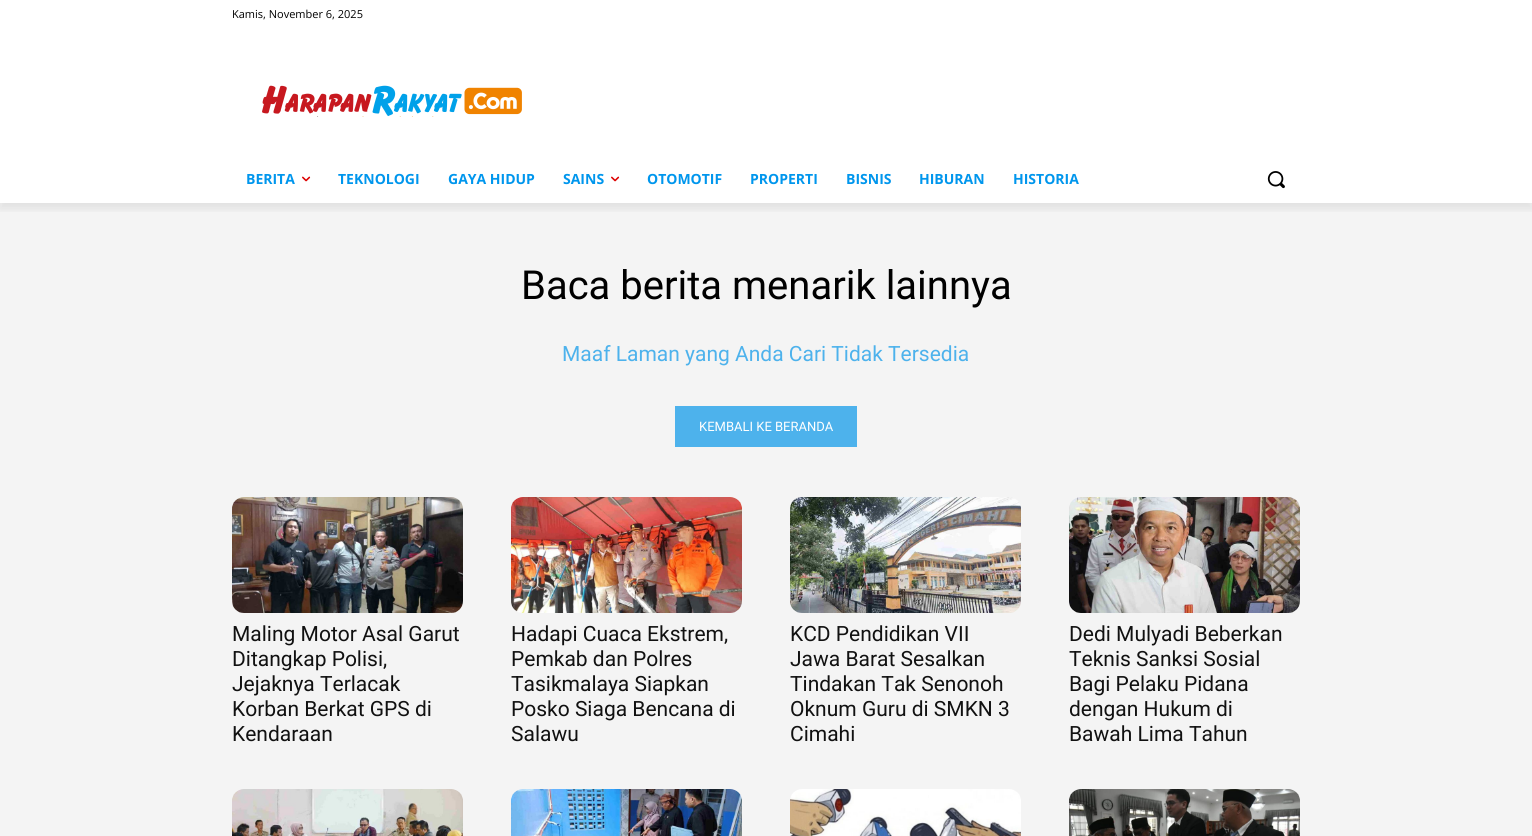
import math
import cairo

surface = cairo.ImageSurface(cairo.FORMAT_RGB24, 1532, 836)
ctx = cairo.Context(surface)
options = cairo.FontOptions()
options.set_hint_metrics(cairo.HINT_METRICS_OFF)
options.set_hint_style(cairo.HINT_STYLE_NONE)
ctx.set_font_options(options)
ctx.set_miter_limit(4)


def set_color(code):
    ctx.set_source_rgb(*(v / 255 for v in bytes.fromhex(code[-6:])))


def draw_text(x, y, s, family, size, color, bold=False, italic=False):
    ctx.select_font_face(family, cairo.FONT_SLANT_ITALIC if italic else cairo.FONT_SLANT_NORMAL, cairo.FONT_WEIGHT_BOLD if bold else cairo.FONT_WEIGHT_NORMAL)
    ctx.set_font_size(size)
    set_color(color)
    ctx.move_to(x, y)
    ctx.show_text(s)


def fill_rect(x, y, w, h, color):
    set_color(color)
    ctx.rectangle(x, y, w, h)
    ctx.fill()


def rounded_rect(x, y, w, h, r):
    ctx.new_sub_path()
    for i, (u, v) in enumerate([(x + w - r, y + h - r), (x + r, y + h - r), (x + r, y + r), (x + w - r, y + r)]):
        ctx.arc(u, v, r, i * math.pi / 2, (i + 1) * math.pi / 2)
    ctx.close_path()


def draw_shadow(x, y, w, h, r, blur, alpha):
    ctx.push_group_with_content(cairo.CONTENT_ALPHA)
    ctx.set_operator(cairo.OPERATOR_SOURCE)
    for i in range(15, -16, -2):
        e = blur * i / 6
        if min(w, h) + 2 * e > 0:
            ctx.set_source_rgba(0, 0, 0, alpha * math.erfc((i - 1) / 8.5) / 2)
            rounded_rect(x - e, y - e, w + 2 * e, h + 2 * e, max(0, min(r + e + blur * .6, min(w, h) / 2 + e)))
            ctx.fill()
    ctx.mask(ctx.pop_group())


def draw_image(path, x, y, w, h):
    ctx.save()
    ctx.set_source_surface(cairo.ImageSurface.create_from_png(path), x, y)
    ctx.rectangle(x, y, w, h)
    ctx.fill()
    ctx.restore()


set_color("#f4f4f4")
ctx.paint()
fill_rect(0, 0, 1532, 203, "#ffffff")
draw_image("assets/img1.png", 262, 85, 260, 32)
ctx.save()
ctx.rectangle(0, 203, 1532, 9)
ctx.clip()
set_color("#000000")
draw_shadow(0, 6, 1532, 203, 0, 4, 0.08)
ctx.restore()
draw_text(232, 18, "Kamis, November 6, 2025", "Open Sans", 11, "#000000")
draw_text(246, 184, "BERITA", "Open Sans", 14, "#0096ed", bold=True)
draw_image("assets/img2.png", 302, 176, 9, 6)
draw_text(338, 184, "TEKNOLOGI", "Open Sans", 14, "#0096ed", bold=True)
draw_text(448, 184, "GAYA HIDUP", "Open Sans", 14, "#0096ed", bold=True)
draw_text(563, 184, "SAINS", "Open Sans", 14, "#0096ed", bold=True)
draw_image("assets/img2.png", 611, 176, 9, 6)
draw_text(647, 184, "OTOMOTIF", "Open Sans", 14, "#0096ed", bold=True)
draw_text(750, 184, "PROPERTI", "Open Sans", 14, "#0096ed", bold=True)
draw_text(846, 184, "BISNIS", "Open Sans", 14, "#0096ed", bold=True)
draw_text(919, 184, "HIBURAN", "Open Sans", 14, "#0096ed", bold=True)
draw_text(1013, 184, "HISTORIA", "Open Sans", 14, "#0096ed", bold=True)
draw_image("assets/img3.png", 1267, 171, 18, 18)
draw_text(521, 299, "Baca berita menarik lainnya", "Roboto", 40, "#000000")
draw_text(562, 361, "Maaf Laman yang Anda Cari Tidak Tersedia", "Roboto", 21, "#4db2ec")
fill_rect(675, 406, 182, 41, "#4db2ec")
draw_text(699, 431, "KEMBALI KE BERANDA", "Roboto", 13, "#ffffff")
draw_image("assets/img4.png", 232, 497, 231, 116)
draw_text(232, 641, "Maling Motor Asal Garut", "Roboto", 21, "#111111")
draw_text(232, 666, "Ditangkap Polisi,", "Roboto", 21, "#111111")
draw_text(232, 691, "Jejaknya Terlacak", "Roboto", 21, "#111111")
draw_text(232, 716, "Korban Berkat GPS di", "Roboto", 21, "#111111")
draw_text(232, 741, "Kendaraan", "Roboto", 21, "#111111")
draw_image("assets/img5.png", 511, 497, 231, 116)
draw_text(511, 641, "Hadapi Cuaca Ekstrem,", "Roboto", 21, "#111111")
draw_text(511, 666, "Pemkab dan Polres", "Roboto", 21, "#111111")
draw_text(511, 691, "Tasikmalaya Siapkan", "Roboto", 21, "#111111")
draw_text(511, 716, "Posko Siaga Bencana di", "Roboto", 21, "#111111")
draw_text(511, 741, "Salawu", "Roboto", 21, "#111111")
draw_image("assets/img6.png", 790, 497, 231, 116)
draw_text(790, 641, "KCD Pendidikan VII", "Roboto", 21, "#111111")
draw_text(790, 666, "Jawa Barat Sesalkan", "Roboto", 21, "#111111")
draw_text(790, 691, "Tindakan Tak Senonoh", "Roboto", 21, "#111111")
draw_text(790, 716, "Oknum Guru di SMKN 3", "Roboto", 21, "#111111")
draw_text(790, 741, "Cimahi", "Roboto", 21, "#111111")
draw_image("assets/img7.png", 1069, 497, 231, 116)
draw_text(1069, 641, "Dedi Mulyadi Beberkan", "Roboto", 21, "#111111")
draw_text(1069, 666, "Teknis Sanksi Sosial", "Roboto", 21, "#111111")
draw_text(1069, 691, "Bagi Pelaku Pidana", "Roboto", 21, "#111111")
draw_text(1069, 716, "dengan Hukum di", "Roboto", 21, "#111111")
draw_text(1069, 741, "Bawah Lima Tahun", "Roboto", 21, "#111111")
draw_image("assets/img8.png", 232, 789, 231, 47)
draw_image("assets/img9.png", 511, 789, 231, 47)
draw_image("assets/img10.png", 790, 789, 231, 47)
draw_image("assets/img11.png", 1069, 789, 231, 47)
surface.write_to_png("output.png")
